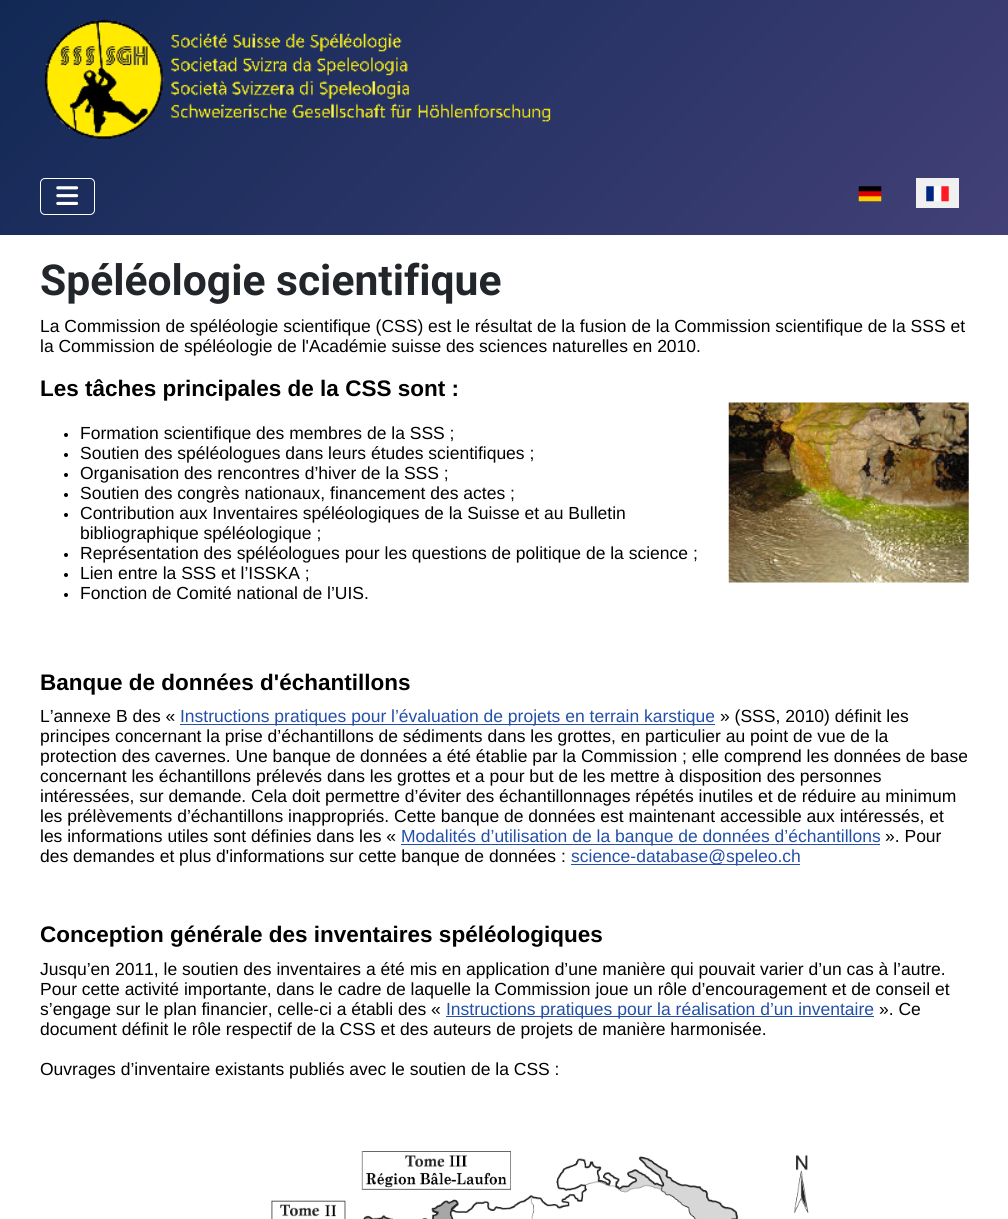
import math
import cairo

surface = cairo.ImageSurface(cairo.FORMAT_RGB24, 1008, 1219)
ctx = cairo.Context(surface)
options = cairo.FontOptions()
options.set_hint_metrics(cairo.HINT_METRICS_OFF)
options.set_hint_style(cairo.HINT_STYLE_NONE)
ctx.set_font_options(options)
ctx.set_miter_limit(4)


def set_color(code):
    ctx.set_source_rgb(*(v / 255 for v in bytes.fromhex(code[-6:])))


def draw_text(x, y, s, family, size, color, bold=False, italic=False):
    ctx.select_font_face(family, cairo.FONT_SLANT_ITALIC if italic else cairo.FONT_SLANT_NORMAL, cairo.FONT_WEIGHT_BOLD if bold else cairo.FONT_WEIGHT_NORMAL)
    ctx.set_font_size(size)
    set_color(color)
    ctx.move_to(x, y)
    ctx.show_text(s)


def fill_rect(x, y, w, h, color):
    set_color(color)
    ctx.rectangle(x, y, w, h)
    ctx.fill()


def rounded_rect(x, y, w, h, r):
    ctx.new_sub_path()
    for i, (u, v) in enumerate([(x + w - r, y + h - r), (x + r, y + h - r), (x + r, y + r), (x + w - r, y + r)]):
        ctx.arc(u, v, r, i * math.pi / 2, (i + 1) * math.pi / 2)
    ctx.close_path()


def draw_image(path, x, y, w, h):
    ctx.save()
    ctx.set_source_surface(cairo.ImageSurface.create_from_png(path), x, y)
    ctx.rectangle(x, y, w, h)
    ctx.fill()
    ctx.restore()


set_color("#ffffff")
ctx.paint()
gradient = cairo.LinearGradient(193, -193, 815, 428)
gradient.add_color_stop_rgba(0, 0.067, 0.157, 0.333, 1)
gradient.add_color_stop_rgba(1, 0.259, 0.251, 0.467, 1)
ctx.set_source(gradient)
ctx.rectangle(0, 0, 1008, 235)
ctx.fill()
draw_image("assets/img1.png", 44, 19, 507, 120)
rounded_rect(40.5, 178.5, 54, 36, 4.5)
set_color("#ffffff")
ctx.set_line_width(1)
ctx.stroke()
draw_image("assets/img2.png", 56, 186, 23, 19)
draw_image("assets/img3.png", 858, 186, 24, 16)
fill_rect(916, 178, 43, 30, "#f0f0f0")
draw_image("assets/img4.png", 926, 186, 23, 16)
draw_text(40, 295, "Spéléologie scientifique", "Roboto", 42.6, "#22262a", bold=True)
draw_text(40, 332, "La Commission de spéléologie scientifique (CSS) est le résultat de la fusion de la Commission scientifique de la SSS et", "Liberation Sans", 17.5, "#000000")
draw_text(40, 352, "la Commission de spéléologie de l'Académie suisse des sciences naturelles en 2010.", "Liberation Sans", 17.5, "#000000")
draw_text(40, 396, "Les tâches principales de la CSS sont :", "Liberation Sans", 22.5, "#000000", bold=True)
draw_image("assets/img5.png", 728, 402, 241, 181)
ctx.arc(66, 435, 2, 0, 2 * math.pi)
ctx.fill()
draw_text(80, 439, "Formation scientifique des membres de la SSS ;", "Liberation Sans", 17.5, "#000000")
ctx.new_path()
ctx.arc(66, 455, 2, 0, 2 * math.pi)
ctx.fill()
draw_text(80, 459, "Soutien des spéléologues dans leurs études scientifiques ;", "Liberation Sans", 17.5, "#000000")
ctx.new_path()
ctx.arc(66, 475, 2, 0, 2 * math.pi)
ctx.fill()
draw_text(80, 479, "Organisation des rencontres d’hiver de la SSS ;", "Liberation Sans", 17.5, "#000000")
ctx.new_path()
ctx.arc(66, 495, 2, 0, 2 * math.pi)
ctx.fill()
draw_text(80, 499, "Soutien des congrès nationaux, financement des actes ;", "Liberation Sans", 17.5, "#000000")
ctx.new_path()
ctx.arc(66, 515, 2, 0, 2 * math.pi)
ctx.fill()
draw_text(80, 519, "Contribution aux Inventaires spéléologiques de la Suisse et au Bulletin", "Liberation Sans", 17.5, "#000000")
draw_text(80, 539, "bibliographique spéléologique ;", "Liberation Sans", 17.5, "#000000")
ctx.new_path()
ctx.arc(66, 555, 2, 0, 2 * math.pi)
ctx.fill()
draw_text(80, 559, "Représentation des spéléologues pour les questions de politique de la science ;", "Liberation Sans", 17.5, "#000000")
ctx.new_path()
ctx.arc(66, 575, 2, 0, 2 * math.pi)
ctx.fill()
draw_text(80, 579, "Lien entre la SSS et l’ISSKA ;", "Liberation Sans", 17.5, "#000000")
ctx.new_path()
ctx.arc(66, 595, 2, 0, 2 * math.pi)
ctx.fill()
draw_text(80, 599, "Fonction de Comité national de l’UIS.", "Liberation Sans", 17.5, "#000000")
draw_text(40, 690, "Banque de données d'échantillons", "Liberation Sans", 22.5, "#000000", bold=True)
draw_text(40, 722, "L’annexe B des «", "Liberation Sans", 17.5, "#000000")
fill_rect(180, 724, 535, 1, "#224faa")
draw_text(180, 722, "Instructions pratiques pour l’évaluation de projets en terrain karstique", "Liberation Sans", 17.5, "#224faa")
draw_text(720, 722, "» (SSS, 2010) définit les", "Liberation Sans", 17.5, "#000000")
draw_text(40, 742, "principes concernant la prise d’échantillons de sédiments dans les grottes, en particulier au point de vue de la", "Liberation Sans", 17.5, "#000000")
draw_text(40, 762, "protection des cavernes. Une banque de données a été établie par la Commission ; elle comprend les données de base", "Liberation Sans", 17.5, "#000000")
draw_text(40, 782, "concernant les échantillons prélevés dans les grottes et a pour but de les mettre à disposition des personnes", "Liberation Sans", 17.5, "#000000")
draw_text(40, 802, "intéressées, sur demande. Cela doit permettre d’éviter des échantillonnages répétés inutiles et de réduire au minimum", "Liberation Sans", 17.5, "#000000")
draw_text(40, 822, "les prélèvements d’échantillons inappropriés. Cette banque de données est maintenant accessible aux intéressés, et", "Liberation Sans", 17.5, "#000000")
draw_text(40, 842, "les informations utiles sont définies dans les «", "Liberation Sans", 17.5, "#000000")
fill_rect(401, 844, 479, 1, "#224faa")
draw_text(401, 842, "Modalités d’utilisation de la banque de données d’échantillons", "Liberation Sans", 17.5, "#224faa")
draw_text(885, 842, "». Pour", "Liberation Sans", 17.5, "#000000")
draw_text(40, 862, "des demandes et plus d'informations sur cette banque de données :", "Liberation Sans", 17.5, "#000000")
fill_rect(571, 864, 229, 1, "#224faa")
draw_text(571, 862, "science-database@speleo.ch", "Liberation Sans", 17.5, "#224faa")
draw_text(40, 942, "Conception générale des inventaires spéléologiques", "Liberation Sans", 22.5, "#000000", bold=True)
draw_text(40, 975, "Jusqu’en 2011, le soutien des inventaires a été mis en application d’une manière qui pouvait varier d’un cas à l’autre.", "Liberation Sans", 17.5, "#000000")
draw_text(40, 995, "Pour cette activité importante, dans le cadre de laquelle la Commission joue un rôle d’encouragement et de conseil et", "Liberation Sans", 17.5, "#000000")
draw_text(40, 1015, "s’engage sur le plan financier, celle-ci a établi des «", "Liberation Sans", 17.5, "#000000")
fill_rect(446, 1016, 428, 1, "#224faa")
draw_text(446, 1015, "Instructions pratiques pour la réalisation d’un inventaire", "Liberation Sans", 17.5, "#224faa")
draw_text(879, 1015, "». Ce", "Liberation Sans", 17.5, "#000000")
draw_text(40, 1035, "document définit le rôle respectif de la CSS et des auteurs de projets de manière harmonisée.", "Liberation Sans", 17.5, "#000000")
draw_text(40, 1075, "Ouvrages d’inventaire existants publiés avec le soutien de la CSS :", "Liberation Sans", 17.5, "#000000")
draw_image("assets/img6.png", 271, 1151, 538, 68)
surface.write_to_png("output.png")
